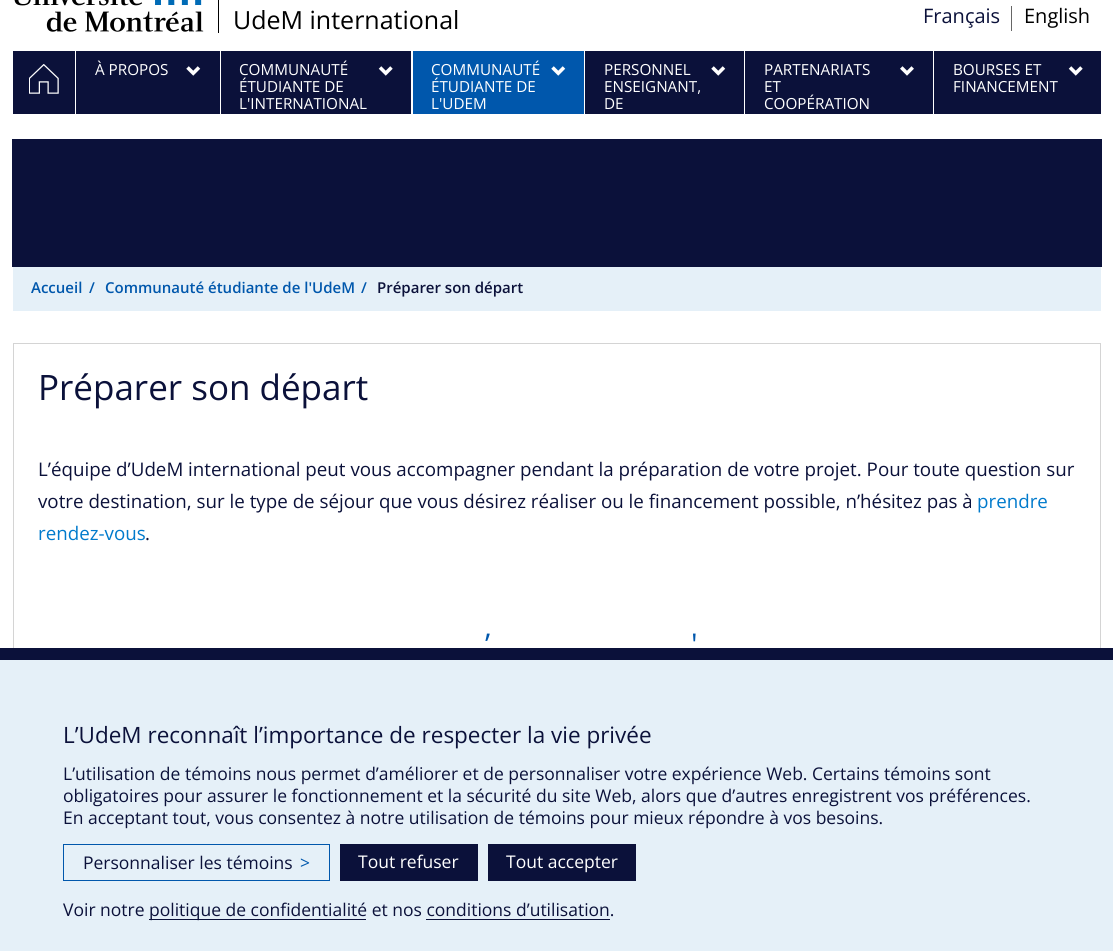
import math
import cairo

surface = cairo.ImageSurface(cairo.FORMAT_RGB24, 1113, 951)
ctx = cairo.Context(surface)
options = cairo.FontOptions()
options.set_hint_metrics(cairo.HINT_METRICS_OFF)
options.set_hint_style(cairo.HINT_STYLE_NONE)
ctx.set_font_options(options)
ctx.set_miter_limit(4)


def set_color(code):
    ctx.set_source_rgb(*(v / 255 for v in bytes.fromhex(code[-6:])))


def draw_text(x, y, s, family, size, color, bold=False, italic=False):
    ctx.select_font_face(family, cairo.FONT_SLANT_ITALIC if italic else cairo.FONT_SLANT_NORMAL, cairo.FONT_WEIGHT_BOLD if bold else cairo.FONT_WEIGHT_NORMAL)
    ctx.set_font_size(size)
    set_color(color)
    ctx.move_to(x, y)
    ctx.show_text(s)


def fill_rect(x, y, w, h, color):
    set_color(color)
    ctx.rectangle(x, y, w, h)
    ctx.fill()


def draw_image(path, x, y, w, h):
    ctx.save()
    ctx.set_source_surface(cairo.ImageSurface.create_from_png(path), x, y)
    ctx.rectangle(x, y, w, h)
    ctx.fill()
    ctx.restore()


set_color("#ffffff")
ctx.paint()
draw_image("assets/img1.png", 14, 0, 190, 32)
fill_rect(218, 0, 1, 33, "#000000")
draw_text(233, 29, "UdeM international", "Open Sans", 25, "#000000")
draw_text(923, 23, "Français", "Open Sans", 20, "#0b113a")
fill_rect(1011, 6, 1, 25, "#666666")
draw_text(1024, 23, "English", "Open Sans", 20, "#000000")
fill_rect(13, 51, 62, 63, "#0b113a")
draw_image("assets/img2.png", 29, 64, 30, 30)
fill_rect(76, 51, 144, 63, "#0b113a")
draw_text(95, 75, "À PROPOS", "Open Sans", 15.25, "#ffffff")
draw_image("assets/img3.png", 186, 66, 15, 10)
fill_rect(221, 51, 190, 63, "#0b113a")
draw_text(239, 75, "COMMUNAUTÉ", "Open Sans", 15.25, "#ffffff")
draw_image("assets/img4.png", 378, 66, 15, 10)
draw_text(239, 92, "ÉTUDIANTE DE", "Open Sans", 15.25, "#ffffff")
draw_text(239, 109, "L'INTERNATIONAL", "Open Sans", 15.25, "#ffffff")
fill_rect(413, 51, 171, 63, "#0057ac")
draw_text(431, 75, "COMMUNAUTÉ", "Open Sans", 15.25, "#ffffff")
draw_image("assets/img5.png", 551, 66, 15, 10)
draw_text(431, 92, "ÉTUDIANTE DE", "Open Sans", 15.25, "#ffffff")
draw_text(431, 109, "L'UDEM", "Open Sans", 15.25, "#ffffff")
fill_rect(585, 51, 159, 63, "#0b113a")
draw_text(604, 75, "PERSONNEL", "Open Sans", 15.25, "#ffffff")
draw_image("assets/img3.png", 711, 66, 15, 10)
draw_text(604, 92, "ENSEIGNANT,", "Open Sans", 15.25, "#ffffff")
draw_text(604, 109, "DE", "Open Sans", 15.25, "#ffffff")
fill_rect(745, 51, 188, 63, "#0b113a")
draw_text(764, 75, "PARTENARIATS", "Open Sans", 15.25, "#ffffff")
draw_image("assets/img6.png", 900, 66, 14, 10)
draw_text(764, 92, "ET", "Open Sans", 15.25, "#ffffff")
draw_text(764, 109, "COOPÉRATION", "Open Sans", 15.25, "#ffffff")
fill_rect(934, 51, 167, 63, "#0b113a")
draw_text(953, 75, "BOURSES ET", "Open Sans", 15.25, "#ffffff")
draw_image("assets/img4.png", 1068, 66, 15, 10)
draw_text(953, 92, "FINANCEMENT", "Open Sans", 15.25, "#ffffff")
fill_rect(12, 139, 1090, 128, "#0b113a")
fill_rect(13, 267, 1088, 44, "#e5f0f8")
draw_text(31, 293, "Accueil", "Open Sans SemiBold", 15, "#0057ac")
draw_text(89, 293, "/", "Open Sans SemiBold", 15, "#0057ac")
draw_text(105, 293, "Communauté étudiante de l'UdeM", "Open Sans SemiBold", 15, "#0057ac")
draw_text(361, 293, "/", "Open Sans SemiBold", 15, "#0057ac")
draw_text(377, 293, "Préparer son départ", "Open Sans SemiBold", 15, "#0b113a")
fill_rect(13, 343, 1088, 1, "#d4d4d4")
fill_rect(1100, 343, 1, 305, "#d4d4d4")
fill_rect(13, 343, 1, 305, "#d4d4d4")
draw_text(38, 400, "Préparer son départ", "Open Sans", 35, "#0b113a")
draw_text(38, 476, "L’équipe d’UdeM international peut vous accompagner pendant la préparation de votre projet. Pour toute question sur", "Open Sans", 18.75, "#0b113a")
draw_text(38, 508, "votre destination, sur le type de séjour que vous désirez réaliser ou le financement possible, n’hésitez pas à", "Open Sans", 18.75, "#0b113a")
draw_text(977, 508, "prendre", "Open Sans", 18.75, "#007acc")
draw_text(38, 540, "rendez-vous", "Open Sans", 18.75, "#007acc")
draw_text(145, 540, ".", "Open Sans", 18.75, "#0b113a")
draw_text(485, 655, "’", "Open Sans", 30, "#0057ac")
draw_text(691, 655, "'", "Open Sans", 30, "#0057ac")
fill_rect(0, 660, 1113, 291, "#e5f0f8")
fill_rect(0, 648, 1113, 12, "#0b113a")
draw_text(63, 743, "L’UdeM reconnaît l’importance de respecter la vie privée", "Open Sans", 22.5, "#0b113a")
draw_text(63, 780, "L’utilisation de témoins nous permet d’améliorer et de personnaliser votre expérience Web. Certains témoins sont", "Open Sans", 17.5, "#0b113a")
draw_text(63, 802, "obligatoires pour assurer le fonctionnement et la sécurité du site Web, alors que d’autres enregistrent vos préférences.", "Open Sans", 17.5, "#0b113a")
draw_text(63, 824, "En acceptant tout, vous consentez à notre utilisation de témoins pour mieux répondre à vos besoins.", "Open Sans", 17.5, "#0b113a")
ctx.rectangle(63.5, 844.5, 266, 36)
set_color("#0057ac")
ctx.set_line_width(1)
ctx.stroke()
draw_text(83, 869, "Personnaliser les témoins", "Open Sans", 17.5, "#0b113a")
draw_text(300, 869, ">", "Open Sans", 17.5, "#0057ac")
fill_rect(340, 844, 138, 37, "#0b113a")
draw_text(358, 868, "Tout refuser", "Open Sans", 17.5, "#ffffff")
fill_rect(488, 844, 148, 37, "#0b113a")
draw_text(506, 868, "Tout accepter", "Open Sans", 17.5, "#ffffff")
draw_text(63, 916, "Voir notre", "Open Sans", 17.5, "#0b113a")
fill_rect(149, 919, 217, 1, "#0b113a")
draw_text(149, 916, "politique de confidentialité et nos conditions d’utilisation.", "Open Sans", 17.5, "#0b113a")
fill_rect(426, 919, 184, 1, "#0b113a")
surface.write_to_png("output.png")
